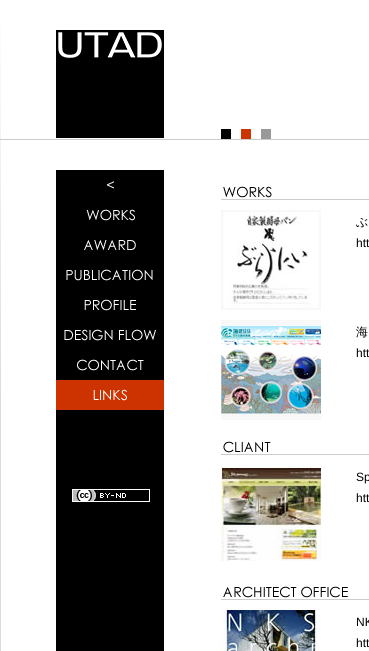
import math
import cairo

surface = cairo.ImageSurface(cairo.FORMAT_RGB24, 369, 651)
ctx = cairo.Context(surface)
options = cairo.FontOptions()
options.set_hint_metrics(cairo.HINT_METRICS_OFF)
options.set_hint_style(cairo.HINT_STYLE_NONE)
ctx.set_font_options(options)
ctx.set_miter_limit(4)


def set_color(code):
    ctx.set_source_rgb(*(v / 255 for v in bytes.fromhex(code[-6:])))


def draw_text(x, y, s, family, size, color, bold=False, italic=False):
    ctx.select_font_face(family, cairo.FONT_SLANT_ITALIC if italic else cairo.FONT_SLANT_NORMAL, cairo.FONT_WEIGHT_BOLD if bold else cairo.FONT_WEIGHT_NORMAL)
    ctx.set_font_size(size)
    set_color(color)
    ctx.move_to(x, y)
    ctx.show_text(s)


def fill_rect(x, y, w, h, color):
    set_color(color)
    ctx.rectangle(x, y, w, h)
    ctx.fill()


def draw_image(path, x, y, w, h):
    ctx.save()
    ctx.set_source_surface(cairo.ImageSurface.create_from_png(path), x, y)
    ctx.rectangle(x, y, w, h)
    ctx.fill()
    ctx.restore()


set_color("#dcdcdc")
ctx.paint()
draw_image("assets/img1.png", 1, 400, 368, 251)
draw_image("assets/img2.png", 0, 0, 1, 400)
fill_rect(1, 0, 368, 400, "#ffffff")
fill_rect(1, 139, 368, 1, "#cccccc")
draw_image("assets/img3.png", 56, 30, 108, 108)
draw_image("assets/img4.png", 221, 129, 50, 10)
draw_image("assets/img5.png", 56, 170, 108, 30)
draw_image("assets/img6.png", 56, 200, 108, 30)
draw_image("assets/img7.png", 56, 230, 108, 30)
draw_image("assets/img8.png", 56, 260, 108, 30)
draw_image("assets/img9.png", 56, 290, 108, 30)
draw_image("assets/img10.png", 56, 320, 108, 30)
draw_image("assets/img11.png", 56, 350, 108, 30)
draw_image("assets/img12.png", 56, 380, 108, 30)
draw_image("assets/img13.png", 72, 489, 78, 13)
draw_image("assets/img14.png", 221, 186, 148, 14)
draw_image("assets/img15.png", 221, 210, 100, 100)
draw_text(356, 226, "ぶ", "WenQuanYi Zen Hei Medium", 12, "#000000")
draw_text(356, 247, "htt", "Liberation Sans", 12, "#000000")
draw_image("assets/img16.png", 221, 320, 100, 100)
draw_text(356, 336, "海", "WenQuanYi Zen Hei Medium", 12, "#000000")
draw_text(356, 357, "htt", "Liberation Sans", 12, "#000000")
draw_image("assets/img17.png", 221, 441, 148, 14)
draw_image("assets/img18.png", 221, 465, 100, 96)
draw_text(356, 481, "Sp", "Liberation Sans", 12, "#000000")
draw_text(356, 502, "htt", "Liberation Sans", 12, "#000000")
draw_image("assets/img19.png", 221, 586, 148, 14)
draw_image("assets/img20.png", 221, 610, 96, 41)
draw_text(356, 626, "NK", "Liberation Sans", 12, "#000000")
draw_text(356, 647, "htt", "Liberation Sans", 12, "#000000")
surface.write_to_png("output.png")
